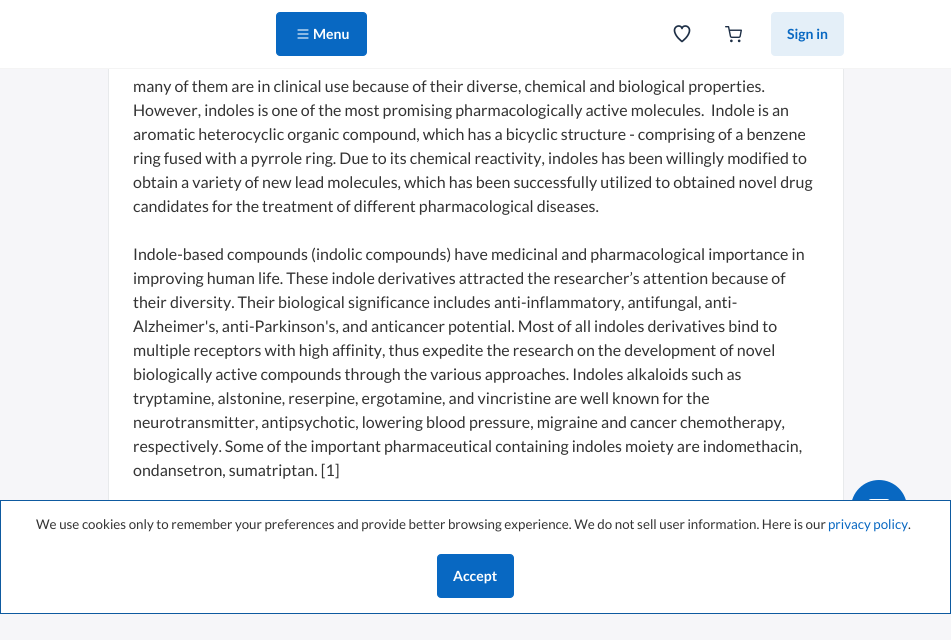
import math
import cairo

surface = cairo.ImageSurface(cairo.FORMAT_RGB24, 951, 640)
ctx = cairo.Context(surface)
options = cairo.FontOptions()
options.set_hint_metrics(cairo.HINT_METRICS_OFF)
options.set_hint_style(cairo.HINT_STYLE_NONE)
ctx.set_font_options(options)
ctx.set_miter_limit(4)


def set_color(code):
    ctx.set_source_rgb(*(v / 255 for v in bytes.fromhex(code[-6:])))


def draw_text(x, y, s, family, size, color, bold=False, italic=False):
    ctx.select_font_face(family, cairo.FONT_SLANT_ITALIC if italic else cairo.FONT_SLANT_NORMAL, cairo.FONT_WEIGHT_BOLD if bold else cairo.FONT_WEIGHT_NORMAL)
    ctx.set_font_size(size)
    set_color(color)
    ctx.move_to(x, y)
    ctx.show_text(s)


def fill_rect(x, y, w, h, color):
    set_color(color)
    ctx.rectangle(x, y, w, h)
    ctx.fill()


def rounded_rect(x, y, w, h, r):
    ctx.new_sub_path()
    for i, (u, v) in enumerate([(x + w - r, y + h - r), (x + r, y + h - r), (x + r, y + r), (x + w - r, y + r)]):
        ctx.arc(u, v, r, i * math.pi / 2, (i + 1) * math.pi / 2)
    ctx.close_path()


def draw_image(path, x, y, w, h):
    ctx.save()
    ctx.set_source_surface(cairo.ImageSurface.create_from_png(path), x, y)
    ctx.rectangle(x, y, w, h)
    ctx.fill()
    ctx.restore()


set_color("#f6f6f9")
ctx.paint()
fill_rect(109, 69, 734, 431, "#ffffff")
ctx.rectangle(108.5, -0.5, 735, 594)
set_color("#e8eaec")
ctx.set_line_width(1)
ctx.stroke()
fill_rect(0, 0, 951, 68, "#ffffff")
fill_rect(0, 68, 951, 1, "#f4f4f4")
set_color("#0868c2")
rounded_rect(276.5, 12.5, 90, 43, 3.5)
ctx.fill_preserve()
ctx.stroke()
ctx.new_path()
ctx.move_to(298, 30)
ctx.line_to(308, 30)
ctx.move_to(298, 34)
ctx.line_to(308, 34)
ctx.move_to(298, 38)
ctx.line_to(308, 38)
set_color("#ffffff")
ctx.set_line_width(1.1)
ctx.set_line_cap(cairo.LINE_CAP_ROUND)
ctx.set_line_join(cairo.LINE_JOIN_ROUND)
ctx.stroke()
draw_text(313, 39, "Menu", "Lato", 14, "#ffffff", bold=True)
draw_image("assets/img1.png", 673, 25, 18, 18)
draw_image("assets/img2.png", 725, 26, 17, 17)
set_color("#e4eff8")
rounded_rect(771.5, 12.5, 72, 43, 3.5)
ctx.fill_preserve()
ctx.set_line_width(1)
ctx.set_line_cap(cairo.LINE_CAP_BUTT)
ctx.set_line_join(cairo.LINE_JOIN_MITER)
ctx.stroke()
draw_text(787, 39, "Sign in", "Lato", 14, "#0868c2", bold=True)
draw_text(133, 92, "many of them are in clinical use because of their diverse, chemical and biological properties.", "Lato", 16, "#333333")
draw_text(133, 116, "However, indoles is one of the most promising pharmacologically active molecules.  Indole is an", "Lato", 16, "#333333")
draw_text(133, 140, "aromatic heterocyclic organic compound, which has a bicyclic structure - comprising of a benzene", "Lato", 16, "#333333")
draw_text(133, 164, "ring fused with a pyrrole ring. Due to its chemical reactivity, indoles has been willingly modified to", "Lato", 16, "#333333")
draw_text(133, 188, "obtain a variety of new lead molecules, which has been successfully utilized to obtained novel drug", "Lato", 16, "#333333")
draw_text(133, 212, "candidates for the treatment of different pharmacological diseases.", "Lato", 16, "#333333")
draw_text(133, 260, "Indole-based compounds (indolic compounds) have medicinal and pharmacological importance in", "Lato", 16, "#333333")
draw_text(133, 284, "improving human life. These indole derivatives attracted the researcher’s attention because of", "Lato", 16, "#333333")
draw_text(133, 308, "their diversity. Their biological significance includes anti-inflammatory, antifungal, anti-", "Lato", 16, "#333333")
draw_text(133, 332, "Alzheimer's, anti-Parkinson's, and anticancer potential. Most of all indoles derivatives bind to", "Lato", 16, "#333333")
draw_text(133, 356, "multiple receptors with high affinity, thus expedite the research on the development of novel", "Lato", 16, "#333333")
draw_text(133, 380, "biologically active compounds through the various approaches. Indoles alkaloids such as", "Lato", 16, "#333333")
draw_text(133, 404, "tryptamine, alstonine, reserpine, ergotamine, and vincristine are well known for the", "Lato", 16, "#333333")
draw_text(133, 428, "neurotransmitter, antipsychotic, lowering blood pressure, migraine and cancer chemotherapy,", "Lato", 16, "#333333")
draw_text(133, 452, "respectively. Some of the important pharmaceutical containing indoles moiety are indomethacin,", "Lato", 16, "#333333")
draw_text(133, 476, "ondansetron, sumatriptan. [1]", "Lato", 16, "#333333")
set_color("#0868c2")
ctx.new_path()
ctx.arc(879, 508, 28, 0, 2 * math.pi)
ctx.fill()
draw_image("assets/img3.png", 868, 499, 22, 1)
set_color("#ffffff")
ctx.rectangle(0.5, 500.5, 950, 113)
ctx.fill_preserve()
set_color("#0e5aa0")
ctx.stroke()
draw_text(36, 529, "We use cookies only to remember your preferences and provide better browsing experience. We do not sell user information. Here is our", "Lato", 13.33, "#333333")
draw_text(828, 529, "privacy policy", "Lato", 13.33, "#0868c2")
draw_text(908, 529, ".", "Lato", 13.33, "#333333")
set_color("#0868c2")
rounded_rect(437.5, 554.5, 76, 43, 3.5)
ctx.fill_preserve()
ctx.stroke()
draw_text(453, 581, "Accept", "Lato", 14, "#ffffff", bold=True)
surface.write_to_png("output.png")
